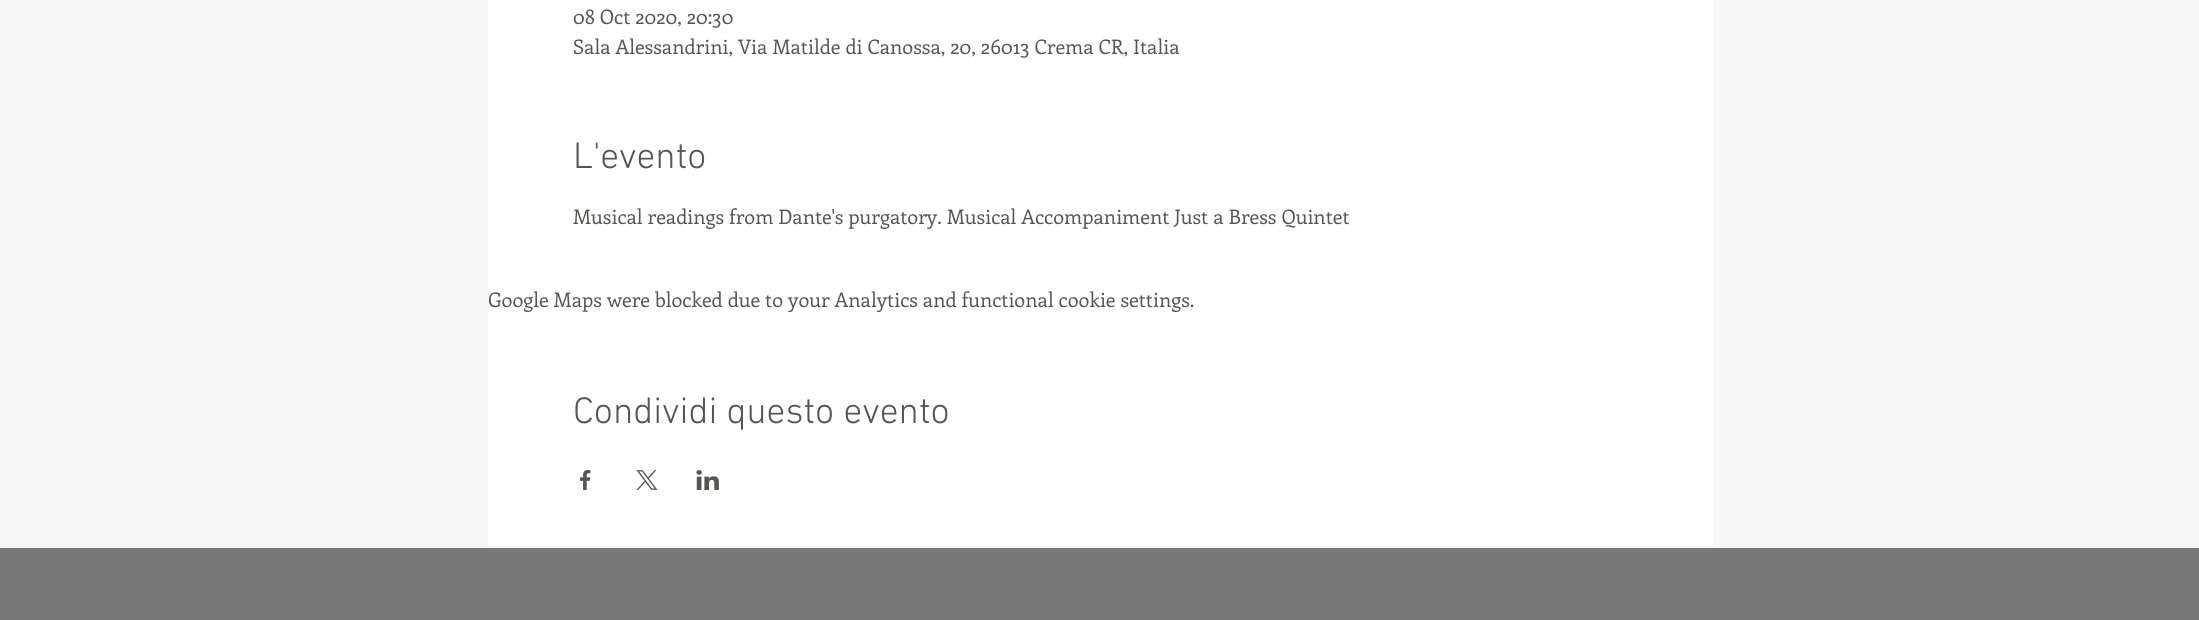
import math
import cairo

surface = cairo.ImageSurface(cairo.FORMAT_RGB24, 2199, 620)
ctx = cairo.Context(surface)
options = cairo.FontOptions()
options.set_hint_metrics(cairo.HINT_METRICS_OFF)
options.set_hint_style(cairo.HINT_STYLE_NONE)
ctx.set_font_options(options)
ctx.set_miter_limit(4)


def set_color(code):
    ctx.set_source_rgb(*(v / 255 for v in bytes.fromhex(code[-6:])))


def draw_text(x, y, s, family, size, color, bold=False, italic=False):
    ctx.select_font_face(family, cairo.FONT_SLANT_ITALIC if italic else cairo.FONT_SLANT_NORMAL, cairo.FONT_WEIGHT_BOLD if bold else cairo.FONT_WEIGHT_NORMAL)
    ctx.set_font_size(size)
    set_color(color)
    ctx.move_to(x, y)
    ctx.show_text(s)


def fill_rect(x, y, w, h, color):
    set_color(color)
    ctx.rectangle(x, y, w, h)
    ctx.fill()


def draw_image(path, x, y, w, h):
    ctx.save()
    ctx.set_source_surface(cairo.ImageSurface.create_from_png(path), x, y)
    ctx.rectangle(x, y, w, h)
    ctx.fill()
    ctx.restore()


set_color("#f8f8f8")
ctx.paint()
fill_rect(488, 0, 1225, 546, "#ffffff")
draw_text(573, 24, "08 Oct 2020, 20:30", "Enriqueta", 20, "#585551")
draw_text(573, 54, "Sala Alessandrini, Via Matilde di Canossa, 20, 26013 Crema CR, Italia", "Enriqueta", 20, "#585551")
draw_text(573, 168, "L'evento", "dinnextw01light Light", 37.5, "#585551")
draw_text(573, 224, "Musical readings from Dante's purgatory. Musical Accompaniment Just a Bress Quintet", "Enriqueta", 20, "#585551")
draw_text(488, 307, "Google Maps were blocked due to your Analytics and functional cookie settings.", "Enriqueta", 20, "#585551")
draw_text(573, 423, "Condividi questo evento", "dinnextw01light Light", 37.5, "#585551")
draw_image("assets/img1.png", 580, 470, 11, 20)
draw_image("assets/img2.png", 636, 470, 22, 20)
draw_image("assets/img3.png", 696, 470, 23, 20)
fill_rect(0, 548, 2199, 72, "#787878")
surface.write_to_png("output.png")
